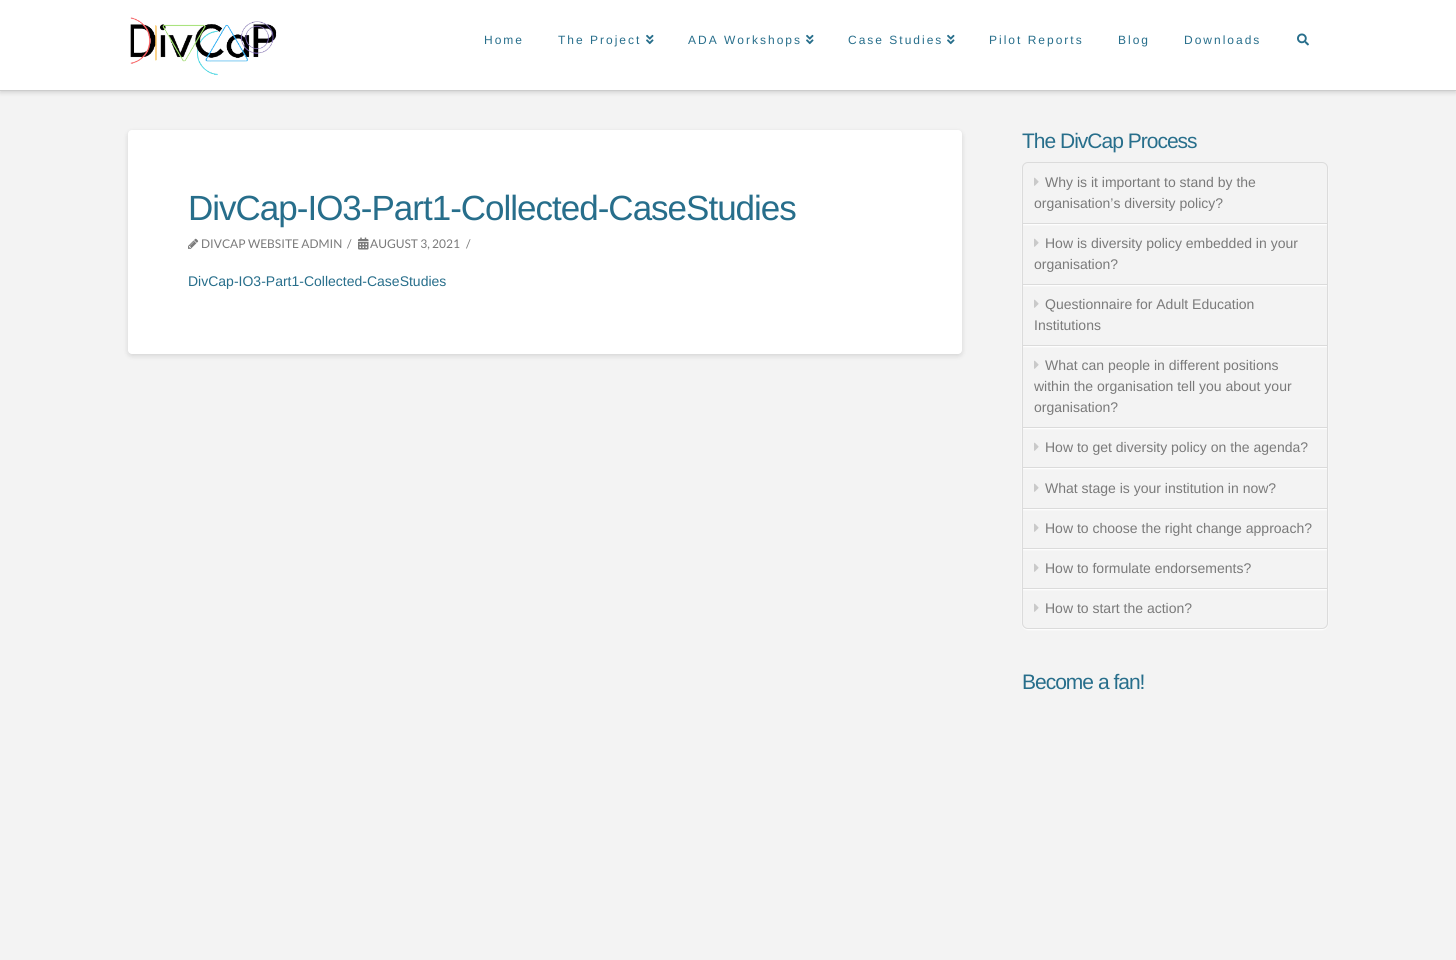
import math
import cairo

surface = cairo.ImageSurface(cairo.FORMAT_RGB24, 1456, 960)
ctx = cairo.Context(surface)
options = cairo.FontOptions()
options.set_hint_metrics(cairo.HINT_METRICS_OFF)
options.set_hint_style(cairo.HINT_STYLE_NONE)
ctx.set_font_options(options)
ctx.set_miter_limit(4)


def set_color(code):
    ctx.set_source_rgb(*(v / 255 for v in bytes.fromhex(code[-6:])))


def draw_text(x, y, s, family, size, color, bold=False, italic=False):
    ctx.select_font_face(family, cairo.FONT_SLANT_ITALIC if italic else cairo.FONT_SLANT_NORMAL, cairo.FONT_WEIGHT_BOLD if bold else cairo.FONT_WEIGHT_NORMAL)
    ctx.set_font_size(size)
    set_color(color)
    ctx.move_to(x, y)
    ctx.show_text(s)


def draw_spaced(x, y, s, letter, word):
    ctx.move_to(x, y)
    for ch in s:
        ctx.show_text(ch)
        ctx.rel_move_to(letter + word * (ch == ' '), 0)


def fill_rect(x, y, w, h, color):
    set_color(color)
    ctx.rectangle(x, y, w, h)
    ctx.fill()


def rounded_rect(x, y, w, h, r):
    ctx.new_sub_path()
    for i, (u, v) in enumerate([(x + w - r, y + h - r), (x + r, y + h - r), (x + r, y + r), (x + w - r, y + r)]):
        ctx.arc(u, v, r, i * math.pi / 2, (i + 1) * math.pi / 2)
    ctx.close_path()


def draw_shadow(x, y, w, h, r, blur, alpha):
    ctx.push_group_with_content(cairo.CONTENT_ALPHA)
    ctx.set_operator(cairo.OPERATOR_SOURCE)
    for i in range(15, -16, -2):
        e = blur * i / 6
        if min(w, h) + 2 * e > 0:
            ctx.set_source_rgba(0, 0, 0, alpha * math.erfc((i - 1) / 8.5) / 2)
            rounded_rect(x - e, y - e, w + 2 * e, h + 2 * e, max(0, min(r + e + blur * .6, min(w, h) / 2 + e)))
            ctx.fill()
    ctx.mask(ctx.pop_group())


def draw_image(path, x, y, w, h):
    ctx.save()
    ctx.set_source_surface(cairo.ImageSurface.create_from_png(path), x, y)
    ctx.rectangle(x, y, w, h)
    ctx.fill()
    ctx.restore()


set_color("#f3f3f3")
ctx.paint()
set_color("#000000")
draw_shadow(0, 2, 1456, 91, 0, 2, 0.13)
fill_rect(0, 0, 1456, 90, "#ffffff")
fill_rect(0, 90, 1456, 1, "#cccccc")
draw_image("assets/img1.png", 130, 17, 147, 59)
ctx.select_font_face("Liberation Sans")
ctx.set_font_size(12)
set_color("#276e8b")
draw_spaced(484, 44, "Home", 2, 0)
draw_spaced(558, 44, "The Project", 2, 0)
draw_image("assets/img2.png", 646, 34, 8, 11)
draw_spaced(688, 44, "ADA Workshops", 2, 0)
draw_image("assets/img2.png", 806, 34, 8, 11)
draw_spaced(848, 44, "Case Studies", 2, 0)
draw_image("assets/img2.png", 947, 34, 8, 11)
draw_spaced(989, 44, "Pilot Reports", 2, 0)
draw_spaced(1118, 44, "Blog", 2, 0)
draw_spaced(1184, 44, "Downloads", 2, 0)
draw_image("assets/img3.png", 1297, 33, 12, 13)
set_color("#000000")
draw_shadow(128, 132, 834, 224, 4, 2.5, 0.13)
set_color("#ffffff")
rounded_rect(128, 130, 834, 224, 4)
ctx.fill()
ctx.set_font_size(35)
set_color("#276e8b")
draw_spaced(188, 220, "DivCap-IO3-Part1-Collected-CaseStudies", -1, 0)
draw_image("assets/img4.png", 188, 238, 11, 11)
draw_text(201, 248, "DIVCAP WEBSITE ADMIN", "Lato", 12, "#7a7a7a")
draw_text(347, 248, "/", "Lato", 12, "#7a7a7a")
draw_image("assets/img5.png", 358, 237, 11, 13)
draw_text(370, 248, "AUGUST 3, 2021", "Lato", 12, "#7a7a7a")
draw_text(466, 248, "/", "Lato", 12, "#7a7a7a")
draw_text(188, 286, "DivCap-IO3-Part1-Collected-CaseStudies", "Liberation Sans", 14, "#276e8b")
ctx.set_font_size(21)
draw_spaced(1022, 148, "The DivCap Process", -1, 0)
ctx.save()
ctx.set_fill_rule(cairo.FILL_RULE_EVEN_ODD)
ctx.new_path()
ctx.move_to(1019, 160)
ctx.line_to(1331, 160)
ctx.line_to(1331, 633)
ctx.line_to(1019, 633)
ctx.close_path()
ctx.move_to(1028, 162)
ctx.line_to(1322, 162)
ctx.curve_to(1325.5, 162, 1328, 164.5, 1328, 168)
ctx.line_to(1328, 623)
ctx.curve_to(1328, 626.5, 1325.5, 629, 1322, 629)
ctx.line_to(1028, 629)
ctx.curve_to(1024.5, 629, 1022, 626.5, 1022, 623)
ctx.line_to(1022, 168)
ctx.curve_to(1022, 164.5, 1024.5, 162, 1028, 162)
ctx.close_path()
ctx.clip()
set_color("#ffffff")
draw_shadow(1022, 163, 306, 467, 6, 0.5, 0.95)
ctx.restore()
rounded_rect(1022.5, 162.5, 305, 466, 5.5)
set_color("#dbdbdb")
ctx.set_line_width(1)
ctx.stroke()
ctx.save()
ctx.rectangle(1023, 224, 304, 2)
ctx.clip()
set_color("#ffffff")
draw_shadow(1023, 164, 304, 61, 0, 0.5, 0.95)
ctx.restore()
fill_rect(1023, 223, 304, 1, "#dbdbdb")
draw_image("assets/img6.png", 1034, 177, 5, 9)
draw_text(1045, 187, "Why is it important to stand by the", "Liberation Sans", 14, "#7a7a7a")
draw_text(1034, 208, "organisation’s diversity policy?", "Liberation Sans", 14, "#7a7a7a")
ctx.save()
ctx.rectangle(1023, 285, 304, 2)
ctx.clip()
set_color("#ffffff")
draw_shadow(1023, 225, 304, 61, 0, 0.5, 0.95)
ctx.restore()
fill_rect(1023, 284, 304, 1, "#dbdbdb")
draw_image("assets/img6.png", 1034, 238, 5, 9)
draw_text(1045, 248, "How is diversity policy embedded in your", "Liberation Sans", 14, "#7a7a7a")
draw_text(1034, 269, "organisation?", "Liberation Sans", 14, "#7a7a7a")
ctx.save()
ctx.rectangle(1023, 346, 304, 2)
ctx.clip()
set_color("#ffffff")
draw_shadow(1023, 286, 304, 61, 0, 0.5, 0.95)
ctx.restore()
fill_rect(1023, 345, 304, 1, "#dbdbdb")
draw_image("assets/img6.png", 1034, 299, 5, 9)
draw_text(1045, 309, "Questionnaire for Adult Education", "Liberation Sans", 14, "#7a7a7a")
draw_text(1034, 330, "Institutions", "Liberation Sans", 14, "#7a7a7a")
ctx.save()
ctx.rectangle(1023, 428, 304, 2)
ctx.clip()
set_color("#ffffff")
draw_shadow(1023, 347, 304, 82, 0, 0.5, 0.95)
ctx.restore()
fill_rect(1023, 427, 304, 1, "#dbdbdb")
draw_image("assets/img6.png", 1034, 360, 5, 9)
draw_text(1045, 370, "What can people in different positions", "Liberation Sans", 14, "#7a7a7a")
draw_text(1034, 391, "within the organisation tell you about your", "Liberation Sans", 14, "#7a7a7a")
draw_text(1034, 412, "organisation?", "Liberation Sans", 14, "#7a7a7a")
ctx.save()
ctx.rectangle(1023, 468, 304, 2)
ctx.clip()
set_color("#ffffff")
draw_shadow(1023, 429, 304, 40, 0, 0.5, 0.95)
ctx.restore()
fill_rect(1023, 467, 304, 1, "#dbdbdb")
draw_image("assets/img6.png", 1034, 442, 5, 9)
draw_text(1045, 452, "How to get diversity policy on the agenda?", "Liberation Sans", 14, "#7a7a7a")
ctx.save()
ctx.rectangle(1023, 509, 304, 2)
ctx.clip()
set_color("#ffffff")
draw_shadow(1023, 469, 304, 41, 0, 0.5, 0.95)
ctx.restore()
fill_rect(1023, 508, 304, 1, "#dbdbdb")
draw_image("assets/img6.png", 1034, 483, 5, 9)
draw_text(1045, 493, "What stage is your institution in now?", "Liberation Sans", 14, "#7a7a7a")
ctx.save()
ctx.rectangle(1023, 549, 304, 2)
ctx.clip()
set_color("#ffffff")
draw_shadow(1023, 510, 304, 40, 0, 0.5, 0.95)
ctx.restore()
fill_rect(1023, 548, 304, 1, "#dbdbdb")
draw_image("assets/img6.png", 1034, 523, 5, 9)
draw_text(1045, 533, "How to choose the right change approach?", "Liberation Sans", 14, "#7a7a7a")
ctx.save()
ctx.rectangle(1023, 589, 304, 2)
ctx.clip()
set_color("#ffffff")
draw_shadow(1023, 550, 304, 40, 0, 0.5, 0.95)
ctx.restore()
fill_rect(1023, 588, 304, 1, "#dbdbdb")
draw_image("assets/img6.png", 1034, 563, 5, 9)
draw_text(1045, 573, "How to formulate endorsements?", "Liberation Sans", 14, "#7a7a7a")
draw_image("assets/img6.png", 1034, 603, 5, 9)
draw_text(1045, 613, "How to start the action?", "Liberation Sans", 14, "#7a7a7a")
ctx.set_font_size(21)
set_color("#276e8b")
draw_spaced(1022, 689, "Become a fan!", -1, 0)
surface.write_to_png("output.png")
